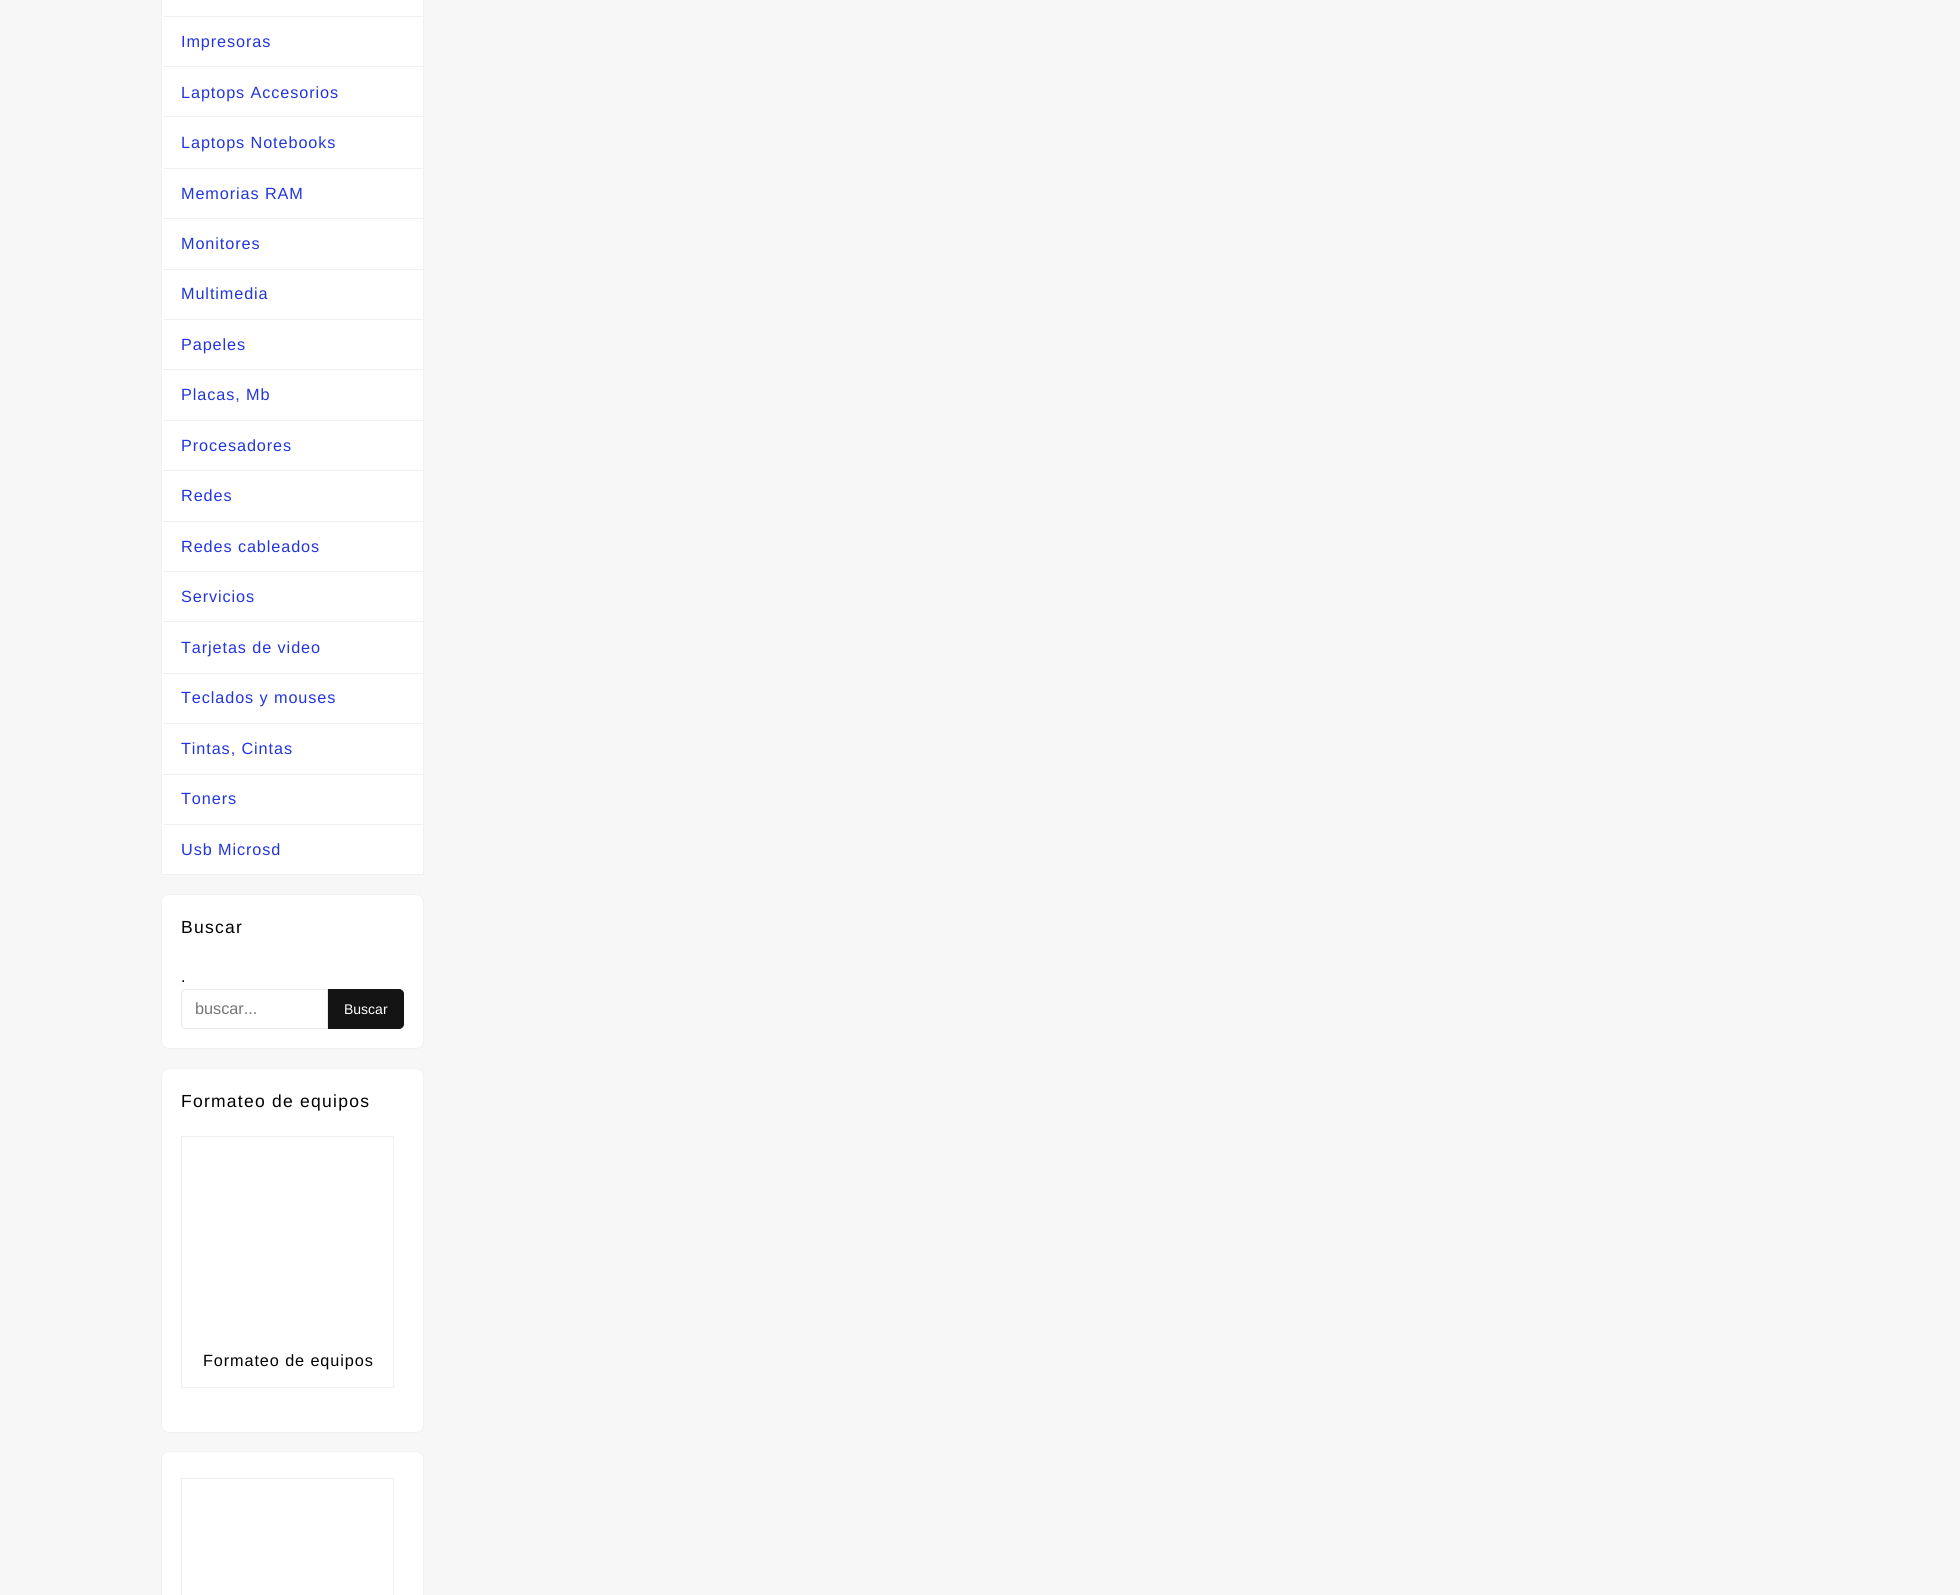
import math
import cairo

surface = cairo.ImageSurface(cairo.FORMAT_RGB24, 1960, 1595)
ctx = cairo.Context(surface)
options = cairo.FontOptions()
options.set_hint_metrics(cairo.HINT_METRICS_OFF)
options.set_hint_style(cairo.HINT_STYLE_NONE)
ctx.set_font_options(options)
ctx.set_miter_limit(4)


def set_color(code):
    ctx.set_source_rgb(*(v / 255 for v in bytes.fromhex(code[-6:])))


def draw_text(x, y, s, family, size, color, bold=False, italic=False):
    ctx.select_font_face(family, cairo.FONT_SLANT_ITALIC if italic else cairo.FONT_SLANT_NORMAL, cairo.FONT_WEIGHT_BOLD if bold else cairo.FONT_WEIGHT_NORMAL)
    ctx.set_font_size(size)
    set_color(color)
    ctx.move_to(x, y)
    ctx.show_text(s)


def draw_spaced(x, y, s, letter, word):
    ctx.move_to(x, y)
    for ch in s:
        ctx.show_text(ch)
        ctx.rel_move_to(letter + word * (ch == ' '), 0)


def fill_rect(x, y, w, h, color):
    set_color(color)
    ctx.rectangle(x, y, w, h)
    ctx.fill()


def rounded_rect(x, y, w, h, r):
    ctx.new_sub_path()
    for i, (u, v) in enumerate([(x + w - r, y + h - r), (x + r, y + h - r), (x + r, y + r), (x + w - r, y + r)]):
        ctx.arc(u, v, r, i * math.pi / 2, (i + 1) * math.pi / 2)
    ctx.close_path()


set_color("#f7f7f7")
ctx.paint()
fill_rect(162, 0, 261, 874, "#ffffff")
fill_rect(423, 0, 1, 875, "#f1f1f1")
fill_rect(161, 874, 263, 1, "#f1f1f1")
fill_rect(161, 0, 1, 875, "#f1f1f1")
fill_rect(163, 16, 260, 1, "#f1f1f1")
fill_rect(163, 66, 260, 1, "#f1f1f1")
ctx.select_font_face("Liberation Sans")
ctx.set_font_size(16.25)
set_color("#2336dd")
draw_spaced(181, 47, "Impresoras", 0.9, 0)
fill_rect(163, 116, 260, 1, "#f1f1f1")
set_color("#2336dd")
draw_spaced(181, 98, "Laptops Accesorios", 0.9, 0)
fill_rect(163, 168, 260, 1, "#f1f1f1")
set_color("#2336dd")
draw_spaced(181, 148, "Laptops Notebooks", 0.9, 0)
fill_rect(163, 218, 260, 1, "#f1f1f1")
set_color("#2336dd")
draw_spaced(181, 199, "Memorias RAM", 0.9, 0)
fill_rect(163, 269, 260, 1, "#f1f1f1")
set_color("#2336dd")
draw_spaced(181, 249, "Monitores", 0.9, 0)
fill_rect(163, 319, 260, 1, "#f1f1f1")
set_color("#2336dd")
draw_spaced(181, 299, "Multimedia", 0.9, 0)
fill_rect(163, 369, 260, 1, "#f1f1f1")
set_color("#2336dd")
draw_spaced(181, 350, "Papeles", 0.9, 0)
fill_rect(163, 420, 260, 1, "#f1f1f1")
set_color("#2336dd")
draw_spaced(181, 400, "Placas, Mb", 0.9, 0)
fill_rect(163, 470, 260, 1, "#f1f1f1")
set_color("#2336dd")
draw_spaced(181, 451, "Procesadores", 0.9, 0)
fill_rect(163, 521, 260, 1, "#f1f1f1")
set_color("#2336dd")
draw_spaced(181, 501, "Redes", 0.9, 0)
fill_rect(163, 571, 260, 1, "#f1f1f1")
set_color("#2336dd")
draw_spaced(181, 552, "Redes cableados", 0.9, 0)
fill_rect(163, 621, 260, 1, "#f1f1f1")
set_color("#2336dd")
draw_spaced(181, 602, "Servicios", 0.9, 0)
fill_rect(163, 673, 260, 1, "#f1f1f1")
set_color("#2336dd")
draw_spaced(181, 653, "Tarjetas de video", 0.9, 0)
fill_rect(163, 723, 260, 1, "#f1f1f1")
set_color("#2336dd")
draw_spaced(181, 703, "Teclados y mouses", 0.9, 0)
fill_rect(163, 774, 260, 1, "#f1f1f1")
set_color("#2336dd")
draw_spaced(181, 754, "Tintas, Cintas", 0.9, 0)
fill_rect(163, 824, 260, 1, "#f1f1f1")
set_color("#2336dd")
draw_spaced(181, 804, "Toners", 0.9, 0)
draw_spaced(181, 855, "Usb Microsd", 0.9, 0)
set_color("#ffffff")
rounded_rect(161.5, 894.5, 262, 154, 7.5)
ctx.fill_preserve()
set_color("#f1f1f1")
ctx.set_line_width(1)
ctx.stroke()
ctx.set_font_size(17.5)
set_color("#000000")
draw_spaced(181, 933, "Buscar", 1.25, 0)
ctx.set_font_size(16.25)
draw_spaced(181, 982, ".", 0.9, 0)
ctx.new_path()
ctx.move_to(185, 989.5)
ctx.line_to(327.5, 989.5)
ctx.line_to(327.5, 1028.5)
ctx.line_to(185, 1028.5)
ctx.curve_to(183, 1028.5, 181.5, 1027, 181.5, 1025)
ctx.line_to(181.5, 993)
ctx.curve_to(181.5, 991, 183, 989.5, 185, 989.5)
ctx.close_path()
set_color("#eaeaea")
ctx.stroke()
draw_text(195, 1014, "buscar...", "Liberation Sans", 16.25, "#757575")
set_color("#141415")
ctx.new_path()
ctx.move_to(328.5, 989.5)
ctx.line_to(399, 989.5)
ctx.curve_to(401.5, 989.5, 403.5, 991.5, 403.5, 994)
ctx.line_to(403.5, 1024)
ctx.curve_to(403.5, 1026.5, 401.5, 1028.5, 399, 1028.5)
ctx.line_to(328.5, 1028.5)
ctx.close_path()
ctx.fill_preserve()
ctx.stroke()
draw_text(344, 1014, "Buscar", "Liberation Sans", 14, "#ffffff")
rounded_rect(161.5, 1068.5, 262, 364, 7.5)
ctx.fill_preserve()
set_color("#f1f1f1")
ctx.stroke()
ctx.set_font_size(17.5)
set_color("#000000")
draw_spaced(181, 1107, "Formateo de equipos", 1.25, 0)
ctx.rectangle(181.5, 1136.5, 212, 251)
set_color("#f0f0f0")
ctx.stroke()
ctx.set_font_size(16.25)
set_color("#000000")
draw_spaced(203, 1366, "Formateo de equipos", 0.9, 0)
set_color("#ffffff")
rounded_rect(161.5, 1451.5, 262, 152, 7.5)
ctx.fill_preserve()
set_color("#f1f1f1")
ctx.stroke()
ctx.rectangle(181.5, 1478.5, 212, 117)
set_color("#f0f0f0")
ctx.stroke()
surface.write_to_png("output.png")
